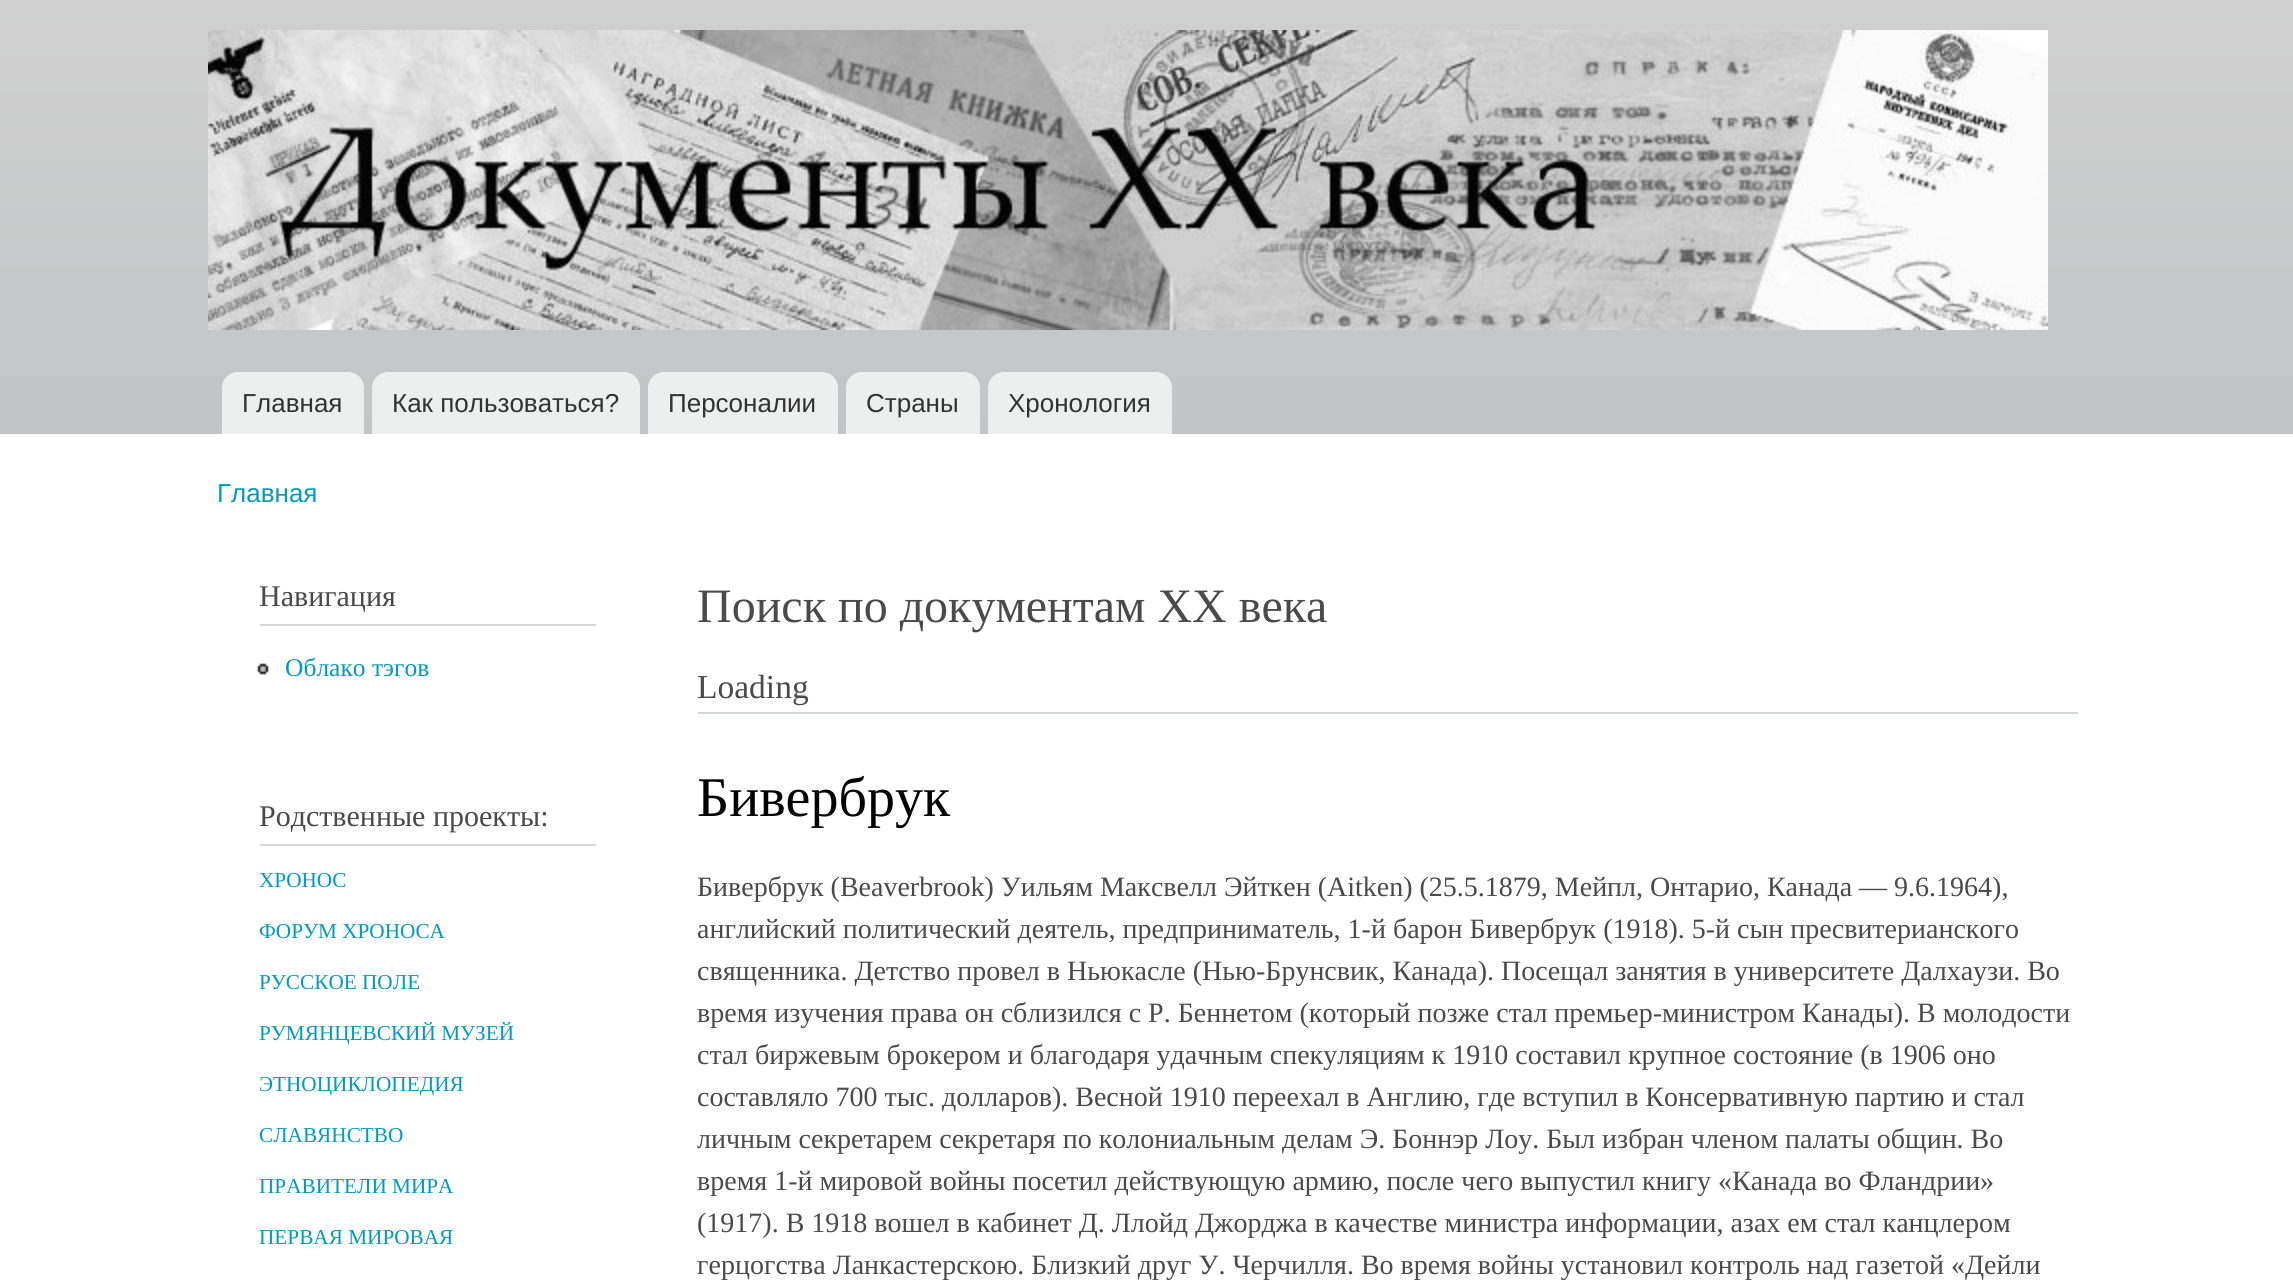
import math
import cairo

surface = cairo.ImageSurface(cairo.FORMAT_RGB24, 2293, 1288)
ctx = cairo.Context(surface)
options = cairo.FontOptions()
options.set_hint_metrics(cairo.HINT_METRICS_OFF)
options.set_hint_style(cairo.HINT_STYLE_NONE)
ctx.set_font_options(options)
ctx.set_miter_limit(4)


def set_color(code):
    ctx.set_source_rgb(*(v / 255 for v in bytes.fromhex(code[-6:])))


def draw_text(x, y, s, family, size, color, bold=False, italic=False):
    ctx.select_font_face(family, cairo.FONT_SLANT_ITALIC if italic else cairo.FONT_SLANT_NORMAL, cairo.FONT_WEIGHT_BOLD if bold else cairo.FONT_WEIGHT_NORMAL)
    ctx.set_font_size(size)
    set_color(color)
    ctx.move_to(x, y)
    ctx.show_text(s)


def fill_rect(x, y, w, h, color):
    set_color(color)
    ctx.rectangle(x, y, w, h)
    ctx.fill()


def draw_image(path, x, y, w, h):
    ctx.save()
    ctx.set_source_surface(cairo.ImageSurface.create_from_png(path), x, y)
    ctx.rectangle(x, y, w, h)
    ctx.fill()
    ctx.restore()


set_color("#ffffff")
ctx.paint()
gradient = cairo.LinearGradient(1147, 0, 1147, 434)
gradient.add_color_stop_rgba(0, 0.816, 0.816, 0.816, 1)
gradient.add_color_stop_rgba(1, 0.761, 0.769, 0.773, 1)
ctx.set_source(gradient)
ctx.rectangle(0, 0, 2293, 434)
ctx.fill()
draw_image("assets/img1.png", 208, 30, 1840, 300)
set_color("#edeeee")
ctx.new_path()
ctx.move_to(238, 372)
ctx.line_to(348, 372)
ctx.curve_to(357, 372, 364, 379, 364, 388)
ctx.line_to(364, 434)
ctx.line_to(222, 434)
ctx.line_to(222, 388)
ctx.curve_to(222, 379, 229, 372, 238, 372)
ctx.close_path()
ctx.fill()
draw_text(242, 412, "Главная", "Liberation Sans", 26, "#333333")
set_color("#edeeee")
ctx.new_path()
ctx.move_to(388, 372)
ctx.line_to(624, 372)
ctx.curve_to(633, 372, 640, 379, 640, 388)
ctx.line_to(640, 434)
ctx.line_to(372, 434)
ctx.line_to(372, 388)
ctx.curve_to(372, 379, 379, 372, 388, 372)
ctx.close_path()
ctx.fill()
draw_text(392, 412, "Как пользоваться?", "Liberation Sans", 26, "#333333")
set_color("#edeeee")
ctx.new_path()
ctx.move_to(664, 372)
ctx.line_to(822, 372)
ctx.curve_to(831, 372, 838, 379, 838, 388)
ctx.line_to(838, 434)
ctx.line_to(648, 434)
ctx.line_to(648, 388)
ctx.curve_to(648, 379, 655, 372, 664, 372)
ctx.close_path()
ctx.fill()
draw_text(668, 412, "Персоналии", "Liberation Sans", 26, "#333333")
set_color("#edeeee")
ctx.new_path()
ctx.move_to(862, 372)
ctx.line_to(964, 372)
ctx.curve_to(973, 372, 980, 379, 980, 388)
ctx.line_to(980, 434)
ctx.line_to(846, 434)
ctx.line_to(846, 388)
ctx.curve_to(846, 379, 853, 372, 862, 372)
ctx.close_path()
ctx.fill()
draw_text(866, 412, "Страны", "Liberation Sans", 26, "#333333")
set_color("#edeeee")
ctx.new_path()
ctx.move_to(1004, 372)
ctx.line_to(1156, 372)
ctx.curve_to(1165, 372, 1172, 379, 1172, 388)
ctx.line_to(1172, 434)
ctx.line_to(988, 434)
ctx.line_to(988, 388)
ctx.curve_to(988, 379, 995, 372, 1004, 372)
ctx.close_path()
ctx.fill()
draw_text(1008, 412, "Хронология", "Liberation Sans", 26, "#333333")
draw_text(217, 502, "Главная", "Liberation Sans", 26, "#009cbf")
fill_rect(260, 624, 336, 2, "#d6d6d6")
draw_text(259, 606, "Навигация", "Liberation Serif", 30, "#4a4a4a")
draw_image("assets/img2.png", 257, 663, 12, 12)
draw_text(285, 676, "Облако тэгов", "Liberation Serif", 25.5, "#009cbf")
fill_rect(260, 844, 336, 2, "#d6d6d6")
draw_text(259, 826, "Родственные проекты:", "Liberation Serif", 30, "#4a4a4a")
draw_text(259, 887, "ХРОНОС", "Liberation Serif", 21.25, "#009cbf")
draw_text(259, 938, "ФОРУМ ХРОНОСА", "Liberation Serif", 21.25, "#009cbf")
draw_text(259, 989, "РУССКОЕ ПОЛЕ", "Liberation Serif", 21.25, "#009cbf")
draw_text(259, 1040, "РУМЯНЦЕВСКИЙ МУЗЕЙ", "Liberation Serif", 21.25, "#009cbf")
draw_text(259, 1091, "ЭТНОЦИКЛОПЕДИЯ", "Liberation Serif", 21.25, "#009cbf")
draw_text(259, 1142, "СЛАВЯНСТВО", "Liberation Serif", 21.25, "#009cbf")
draw_text(259, 1193, "ПРАВИТЕЛИ МИРА", "Liberation Serif", 21.25, "#009cbf")
draw_text(259, 1244, "ПЕРВАЯ МИРОВАЯ", "Liberation Serif", 21.25, "#009cbf")
fill_rect(698, 712, 1380, 2, "#d3d7d9")
draw_text(697, 622, "Поиск по документам XX века", "Liberation Serif", 48, "#4a4a4a")
draw_text(697, 698, "Loading", "Liberation Serif", 33.5, "#4a4a4a")
draw_text(697, 816, "Бивербрук", "Liberation Serif", 56, "#000000")
draw_text(697, 896, "Бивербрук (Beaverbrook) Уильям Максвелл Эйткен (Aitken) (25.5.1879, Мейпл, Онтарио, Канада — 9.6.1964),", "Liberation Serif", 28, "#4a4a4a")
draw_text(697, 938, "английский политический деятель, предприниматель, 1-й барон Бивербрук (1918). 5-й сын пресвитерианского", "Liberation Serif", 28, "#4a4a4a")
draw_text(697, 980, "священника. Детство провел в Ньюкасле (Нью-Брунсвик, Канада). Посещал занятия в университете Далхаузи. Во", "Liberation Serif", 28, "#4a4a4a")
draw_text(697, 1022, "время изучения права он сблизился с Р. Беннетом (который позже стал премьер-министром Канады). В молодости", "Liberation Serif", 28, "#4a4a4a")
draw_text(697, 1064, "стал биржевым брокером и благодаря удачным спекуляциям к 1910 составил крупное состояние (в 1906 оно", "Liberation Serif", 28, "#4a4a4a")
draw_text(697, 1106, "составляло 700 тыс. долларов). Весной 1910 переехал в Англию, где вступил в Консервативную партию и стал", "Liberation Serif", 28, "#4a4a4a")
draw_text(697, 1148, "личным секретарем секретаря по колониальным делам Э. Боннэр Лоу. Был избран членом палаты общин. Во", "Liberation Serif", 28, "#4a4a4a")
draw_text(697, 1190, "время 1-й мировой войны посетил действующую армию, после чего выпустил книгу «Канада во Фландрии»", "Liberation Serif", 28, "#4a4a4a")
draw_text(697, 1232, "(1917). В 1918 вошел в кабинет Д. Ллойд Джорджа в качестве министра информации, азах ем стал канцлером", "Liberation Serif", 28, "#4a4a4a")
draw_text(697, 1274, "герцогства Ланкастерскою. Близкий друг У. Черчилля. Во время войны установил контроль над газетой «Дейли", "Liberation Serif", 28, "#4a4a4a")
surface.write_to_png("output.png")
